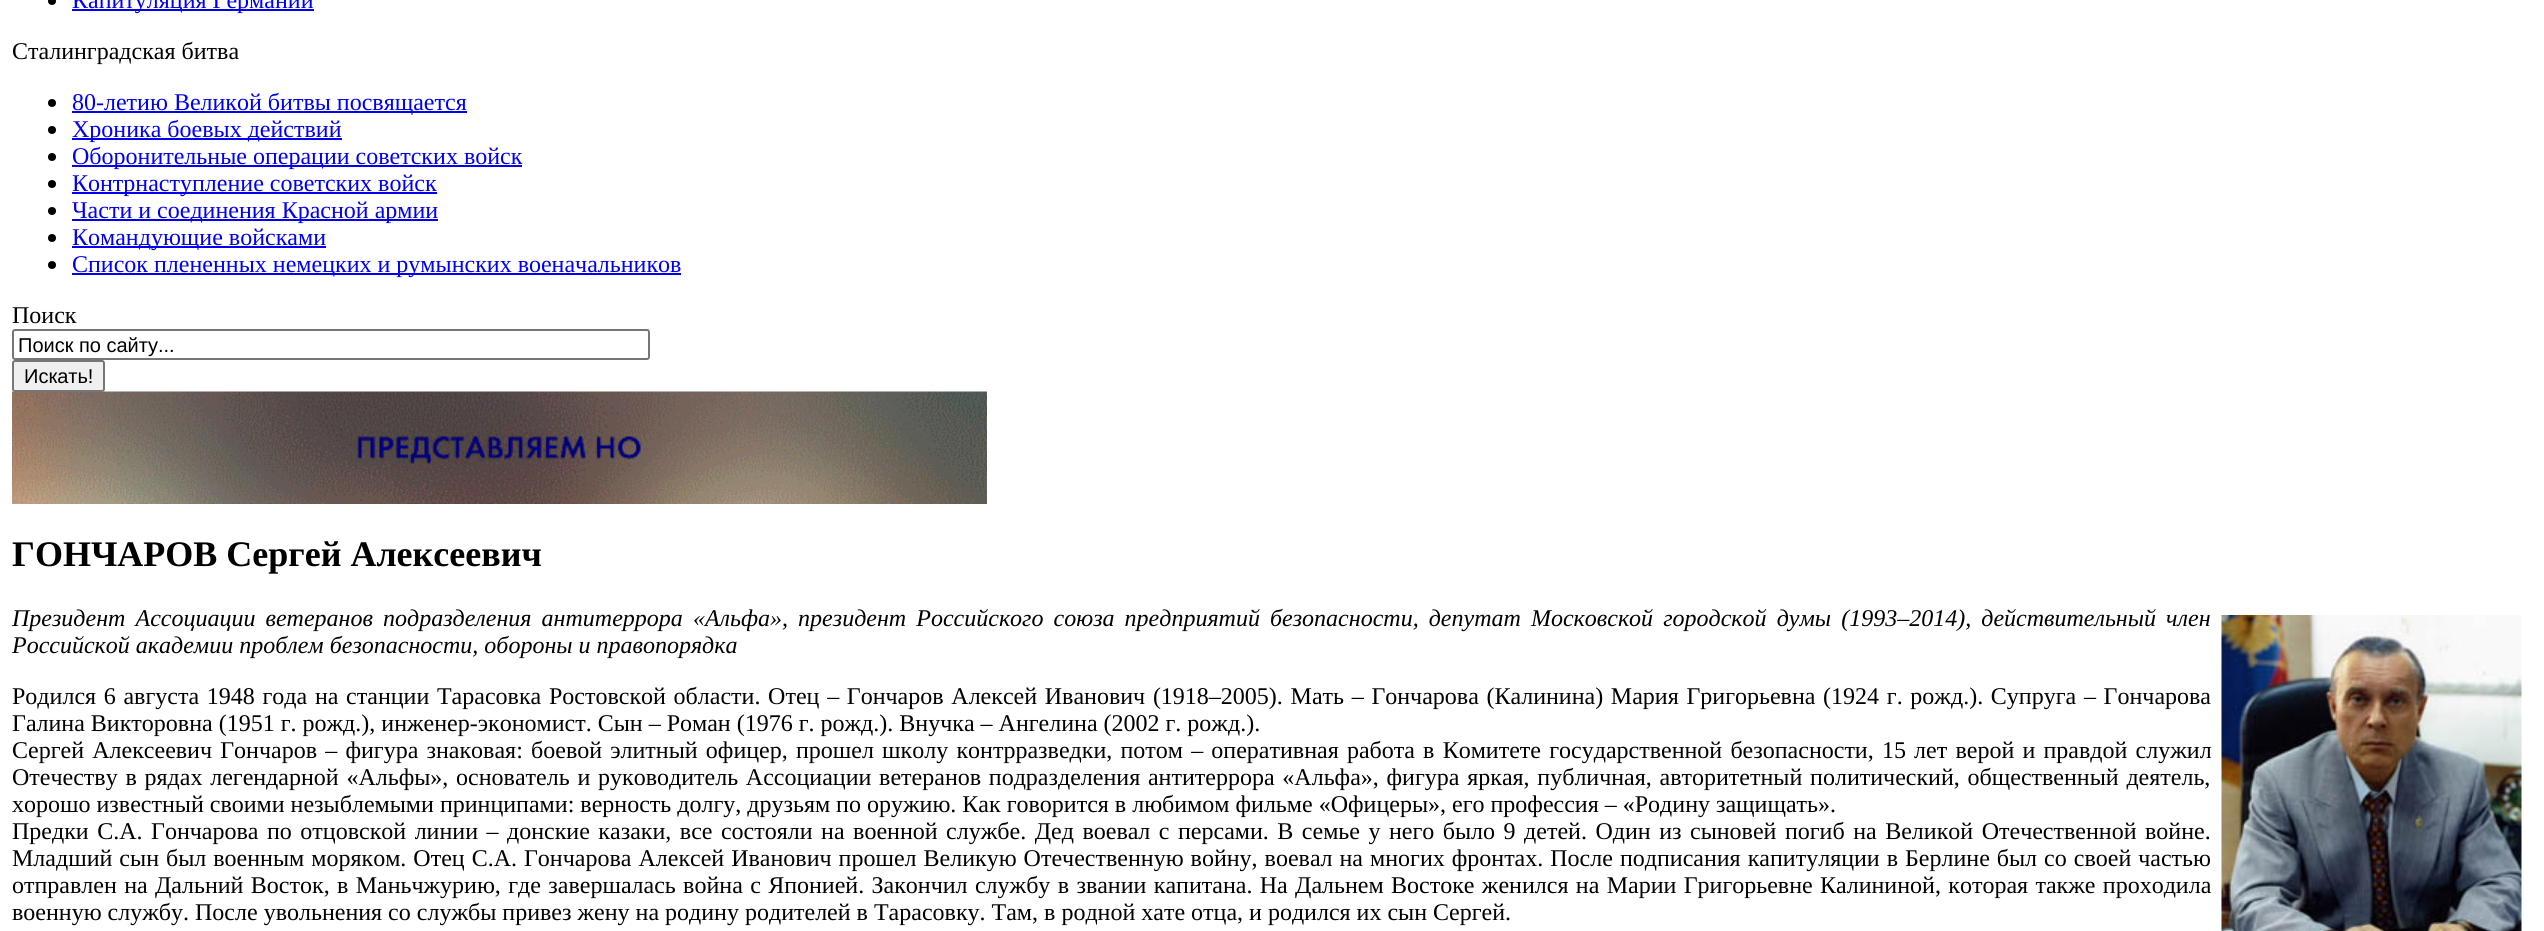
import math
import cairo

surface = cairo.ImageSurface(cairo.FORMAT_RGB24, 2544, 931)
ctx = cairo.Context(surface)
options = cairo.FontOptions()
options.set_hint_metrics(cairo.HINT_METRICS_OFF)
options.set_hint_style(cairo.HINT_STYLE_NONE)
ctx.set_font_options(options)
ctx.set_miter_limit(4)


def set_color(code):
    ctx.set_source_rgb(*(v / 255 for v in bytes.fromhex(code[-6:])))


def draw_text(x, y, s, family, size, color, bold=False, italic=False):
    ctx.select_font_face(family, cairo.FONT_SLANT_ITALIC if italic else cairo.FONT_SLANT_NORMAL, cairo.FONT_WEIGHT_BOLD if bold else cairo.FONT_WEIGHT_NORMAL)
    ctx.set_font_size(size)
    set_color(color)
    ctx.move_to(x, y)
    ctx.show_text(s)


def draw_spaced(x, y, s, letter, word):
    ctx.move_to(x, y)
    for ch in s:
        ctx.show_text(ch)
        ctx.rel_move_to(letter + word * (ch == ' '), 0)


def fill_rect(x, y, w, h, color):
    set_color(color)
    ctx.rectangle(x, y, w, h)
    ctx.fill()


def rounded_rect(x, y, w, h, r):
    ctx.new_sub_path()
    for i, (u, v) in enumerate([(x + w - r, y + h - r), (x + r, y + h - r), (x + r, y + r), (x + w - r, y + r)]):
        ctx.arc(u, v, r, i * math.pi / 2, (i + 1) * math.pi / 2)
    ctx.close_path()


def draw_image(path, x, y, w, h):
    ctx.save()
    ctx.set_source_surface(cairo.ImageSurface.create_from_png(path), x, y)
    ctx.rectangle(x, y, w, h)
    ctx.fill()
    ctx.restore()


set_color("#ffffff")
ctx.paint()
set_color("#000000")
ctx.arc(52, 1, 4, 0, 2 * math.pi)
ctx.fill()
fill_rect(72, 9, 242, 2, "#0000ee")
draw_text(72, 8, "Капитуляция Германии", "Liberation Serif", 24, "#0000ee")
draw_text(12, 59, "Сталинградская битва", "Liberation Serif", 24, "#000000")
ctx.new_path()
ctx.arc(52, 103, 4, 0, 2 * math.pi)
ctx.fill()
fill_rect(72, 111, 395, 2, "#0000ee")
draw_text(72, 110, "80-летию Великой битвы посвящается", "Liberation Serif", 24, "#0000ee")
set_color("#000000")
ctx.new_path()
ctx.arc(52, 130, 4, 0, 2 * math.pi)
ctx.fill()
fill_rect(72, 138, 270, 2, "#0000ee")
draw_text(72, 137, "Хроника боевых действий", "Liberation Serif", 24, "#0000ee")
set_color("#000000")
ctx.new_path()
ctx.arc(52, 157, 4, 0, 2 * math.pi)
ctx.fill()
fill_rect(72, 165, 450, 2, "#0000ee")
draw_text(72, 164, "Оборонительные операции советских войск", "Liberation Serif", 24, "#0000ee")
set_color("#000000")
ctx.new_path()
ctx.arc(52, 184, 4, 0, 2 * math.pi)
ctx.fill()
fill_rect(72, 192, 365, 2, "#0000ee")
draw_text(72, 191, "Контрнаступление советских войск", "Liberation Serif", 24, "#0000ee")
set_color("#000000")
ctx.new_path()
ctx.arc(52, 211, 4, 0, 2 * math.pi)
ctx.fill()
fill_rect(72, 219, 366, 2, "#0000ee")
draw_text(72, 218, "Части и соединения Красной армии", "Liberation Serif", 24, "#0000ee")
set_color("#000000")
ctx.new_path()
ctx.arc(52, 238, 4, 0, 2 * math.pi)
ctx.fill()
fill_rect(72, 246, 254, 2, "#0000ee")
draw_text(72, 245, "Командующие войсками", "Liberation Serif", 24, "#0000ee")
set_color("#000000")
ctx.new_path()
ctx.arc(52, 265, 4, 0, 2 * math.pi)
ctx.fill()
fill_rect(72, 273, 609, 2, "#0000ee")
draw_text(72, 272, "Список плененных немецких и румынских военачальников", "Liberation Serif", 24, "#0000ee")
draw_text(12, 323, "Поиск", "Liberation Serif", 24, "#000000")
rounded_rect(13, 330, 636, 29, 2)
set_color("#767676")
ctx.stroke()
draw_text(18, 352, "Поиск по сайту...", "Liberation Sans", 20, "#000000")
draw_image("assets/img1.png", 12, 391, 975, 113)
set_color("#efefef")
rounded_rect(13, 361, 91, 30, 2)
ctx.fill_preserve()
set_color("#767676")
ctx.stroke()
draw_text(24, 383, "Искать!", "Liberation Sans", 20, "#000000")
draw_text(12, 566, "ГОНЧАРОВ Сергей Алексеевич", "Liberation Serif", 36, "#000000", bold=True)
ctx.select_font_face("Liberation Serif", cairo.FONT_SLANT_ITALIC)
ctx.set_font_size(24)
draw_spaced(12, 626, "Президент Ассоциации ветеранов подразделения антитеррора «Альфа», президент Российского союза предприятий безопасности, депутат Московской городской думы (1993–2014), действительный член", 0, 4.1)
draw_text(12, 653, "Российской академии проблем безопасности, обороны и правопорядка", "Liberation Serif", 24, "#000000", italic=True)
draw_image("assets/img2.png", 2221, 615, 301, 316)
ctx.select_font_face("Liberation Serif")
draw_spaced(12, 704, "Родился 6 августа 1948 года на станции Тарасовка Ростовской области. Отец – Гончаров Алексей Иванович (1918–2005). Мать – Гончарова (Калинина) Мария Григорьевна (1924 г. рожд.). Супруга – Гончарова", 0, 1.7)
draw_text(12, 731, "Галина Викторовна (1951 г. рожд.), инженер-экономист. Сын – Роман (1976 г. рожд.). Внучка – Ангелина (2002 г. рожд.).", "Liberation Serif", 24, "#000000")
draw_spaced(12, 758, "Сергей Алексеевич Гончаров – фигура знаковая: боевой элитный офицер, прошел школу контрразведки, потом – оперативная работа в Комитете государственной безопасности, 15 лет верой и правдой служил", 0, 2.2)
draw_spaced(12, 785, "Отечеству в рядах легендарной «Альфы», основатель и руководитель Ассоциации ветеранов подразделения антитеррора «Альфа», фигура яркая, публичная, авторитетный политический, общественный деятель,", 0, 1.75)
draw_text(12, 812, "хорошо известный своими незыблемыми принципами: верность долгу, друзьям по оружию. Как говорится в любимом фильме «Офицеры», его профессия – «Родину защищать».", "Liberation Serif", 24, "#000000")
draw_spaced(12, 839, "Предки С.А. Гончарова по отцовской линии – донские казаки, все состояли на военной службе. Дед воевал с персами. В семье у него было 9 детей. Один из сыновей погиб на Великой Отечественной войне.", 0, 2.5)
draw_spaced(12, 866, "Младший сын был военным моряком. Отец С.А. Гончарова Алексей Иванович прошел Великую Отечественную войну, воевал на многих фронтах. После подписания капитуляции в Берлине был со своей частью", 0, 1)
draw_spaced(12, 893, "отправлен на Дальний Восток, в Маньчжурию, где завершалась война с Японией. Закончил службу в звании капитана. На Дальнем Востоке женился на Марии Григорьевне Калининой, которая также проходила", 0, 1.35)
draw_text(12, 920, "военную службу. После увольнения со службы привез жену на родину родителей в Тарасовку. Там, в родной хате отца, и родился их сын Сергей.", "Liberation Serif", 24, "#000000")
surface.write_to_png("output.png")
